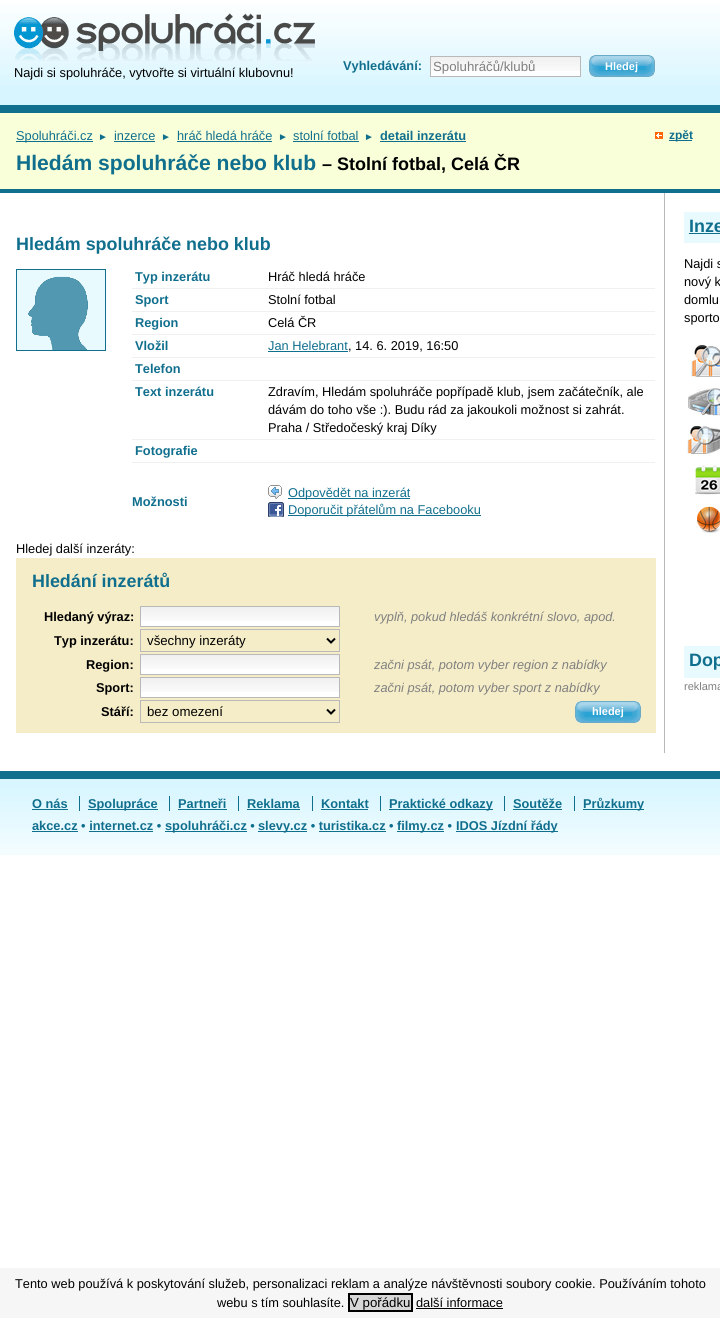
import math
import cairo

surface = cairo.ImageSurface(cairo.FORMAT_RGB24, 720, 1318)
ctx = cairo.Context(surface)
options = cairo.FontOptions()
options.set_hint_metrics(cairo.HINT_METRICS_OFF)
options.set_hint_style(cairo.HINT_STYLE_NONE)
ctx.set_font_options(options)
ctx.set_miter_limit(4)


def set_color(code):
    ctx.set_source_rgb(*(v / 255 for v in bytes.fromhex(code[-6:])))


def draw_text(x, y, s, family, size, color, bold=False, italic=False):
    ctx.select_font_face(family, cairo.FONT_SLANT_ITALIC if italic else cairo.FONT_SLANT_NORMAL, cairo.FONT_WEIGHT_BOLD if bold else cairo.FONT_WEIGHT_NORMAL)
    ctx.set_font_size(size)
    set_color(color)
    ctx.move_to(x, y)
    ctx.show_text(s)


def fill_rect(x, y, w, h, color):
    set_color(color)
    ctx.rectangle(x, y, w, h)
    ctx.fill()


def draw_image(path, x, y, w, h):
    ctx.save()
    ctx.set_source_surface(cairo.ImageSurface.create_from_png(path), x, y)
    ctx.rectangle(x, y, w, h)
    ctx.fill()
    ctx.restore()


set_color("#ffffff")
ctx.paint()
fill_rect(0, 86, 720, 19, "#d6f5ff")
draw_image("assets/img1.png", 0, 0, 720, 86)
fill_rect(0, 105, 720, 8, "#116f8e")
draw_image("assets/img2.png", 14, 13, 301, 48)
draw_text(14, 77, "Najdi si spoluhráče, vytvořte si virtuální klubovnu!", "Liberation Sans", 12.8, "#000000")
draw_text(343, 70, "Vyhledávání:", "Liberation Sans", 12.8, "#116f8e", bold=True)
fill_rect(431, 71, 149, 5, "#ffffff")
draw_image("assets/img3.png", 431, 57, 149, 14)
ctx.rectangle(430.5, 56.5, 150, 20)
set_color("#b9b9b9")
ctx.set_line_width(1)
ctx.stroke()
draw_text(433, 71, "Spoluhráčů/klubů", "Liberation Sans", 13.25, "#808080")
draw_image("assets/img4.png", 589, 55, 66, 22)
draw_text(605, 70, "Hledej", "Liberation Sans", 11, "#ffffff", bold=True)
fill_rect(0, 113, 720, 76, "#f9ffd8")
fill_rect(0, 189, 720, 4, "#116f8e")
fill_rect(16, 141, 77, 1, "#116f8e")
draw_text(16, 140, "Spoluhráči.cz", "Liberation Sans", 12.8, "#116f8e")
draw_text(98, 140, "►", "Liberation Sans", 10, "#116f8e")
draw_text(114, 140, "inzerce", "Liberation Sans", 12.8, "#116f8e")
fill_rect(114, 141, 41, 1, "#116f8e")
draw_text(161, 140, "►", "Liberation Sans", 10, "#116f8e")
draw_text(177, 140, "hráč hledá hráče", "Liberation Sans", 12.8, "#116f8e")
fill_rect(177, 141, 95, 1, "#116f8e")
draw_text(278, 140, "►", "Liberation Sans", 10, "#116f8e")
draw_text(293, 140, "stolní fotbal", "Liberation Sans", 12.8, "#116f8e")
fill_rect(293, 141, 66, 1, "#116f8e")
draw_text(364, 140, "►", "Liberation Sans", 10, "#116f8e")
draw_text(380, 140, "detail inzerátu", "Liberation Sans", 12.8, "#116f8e", bold=True)
fill_rect(380, 141, 86, 1, "#116f8e")
draw_text(16, 170, "Hledám spoluhráče nebo klub", "Liberation Sans", 21.1, "#116f8e", bold=True)
draw_text(322, 170, "– Stolní fotbal, Celá ČR", "Liberation Sans", 18, "#000000", bold=True)
draw_image("assets/img5.png", 655, 132, 8, 7)
fill_rect(669, 140, 23, 1, "#116f8e")
draw_text(669, 139, "zpět", "Liberation Sans", 12, "#116f8e", bold=True)
fill_rect(664, 193, 1, 560, "#b9b9b9")
draw_text(16, 250, "Hledám spoluhráče nebo klub", "Liberation Sans", 17.9, "#116f8e", bold=True)
draw_image("assets/img6.png", 16, 269, 90, 82)
draw_text(135, 281, "Typ inzerátu", "Liberation Sans", 12.8, "#116f8e", bold=True)
draw_text(268, 281, "Hráč hledá hráče", "Liberation Sans", 12.8, "#000000")
draw_text(135, 304, "Sport", "Liberation Sans", 12.8, "#116f8e", bold=True)
fill_rect(132, 288, 523, 1, "#f0f0f0")
draw_text(268, 304, "Stolní fotbal", "Liberation Sans", 12.8, "#000000")
draw_text(135, 327, "Region", "Liberation Sans", 12.8, "#116f8e", bold=True)
fill_rect(132, 311, 523, 1, "#f0f0f0")
draw_text(268, 327, "Celá ČR", "Liberation Sans", 12.8, "#000000")
draw_text(135, 350, "Vložil", "Liberation Sans", 12.8, "#116f8e", bold=True)
fill_rect(132, 334, 523, 1, "#f0f0f0")
draw_text(268, 350, "Jan Helebrant", "Liberation Sans", 12.8, "#116f8e")
fill_rect(268, 351, 80, 1, "#116f8e")
draw_text(348, 350, ", 14. 6. 2019, 16:50", "Liberation Sans", 12.8, "#000000")
fill_rect(132, 357, 523, 1, "#f0f0f0")
draw_text(135, 373, "Telefon", "Liberation Sans", 12.8, "#116f8e", bold=True)
draw_text(135, 396, "Text inzerátu", "Liberation Sans", 12.8, "#116f8e", bold=True)
fill_rect(132, 380, 523, 1, "#f0f0f0")
draw_text(268, 396, "Zdravím, Hledám spoluhráče popřípadě klub, jsem začátečník, ale", "Liberation Sans", 12.8, "#000000")
draw_text(268, 414, "dávám do toho vše :). Budu rád za jakoukoli možnost si zahrát.", "Liberation Sans", 12.8, "#000000")
draw_text(268, 432, "Praha / Středočeský kraj Díky", "Liberation Sans", 12.8, "#000000")
fill_rect(132, 439, 523, 1, "#f0f0f0")
draw_text(135, 455, "Fotografie", "Liberation Sans", 12.8, "#116f8e", bold=True)
draw_text(132, 506, "Možnosti", "Liberation Sans", 12.8, "#116f8e", bold=True)
fill_rect(132, 462, 523, 1, "#f0f0f0")
draw_image("assets/img7.png", 268, 485, 14, 14)
fill_rect(288, 498, 122, 1, "#116f8e")
draw_text(288, 497, "Odpovědět na inzerát", "Liberation Sans", 12.8, "#116f8e")
draw_image("assets/img8.png", 268, 502, 16, 15)
fill_rect(288, 515, 193, 1, "#116f8e")
draw_text(288, 514, "Doporučit přátelům na Facebooku", "Liberation Sans", 12.8, "#116f8e")
draw_text(16, 553, "Hledej další inzeráty:", "Liberation Sans", 12.8, "#000000")
fill_rect(16, 558, 640, 175, "#f5edc8")
draw_text(32, 587, "Hledání inzerátů", "Liberation Sans", 17.9, "#116f8e", bold=True)
draw_text(44, 621, "Hledaný výraz:", "Liberation Sans", 12.8, "#000000", bold=True)
fill_rect(141, 621, 198, 5, "#ffffff")
draw_image("assets/img9.png", 141, 607, 198, 14)
ctx.rectangle(140.5, 606.5, 199, 20)
set_color("#b9b9b9")
ctx.stroke()
draw_text(374, 621, "vyplň, pokud hledáš konkrétní slovo, apod.", "Liberation Sans", 12.8, "#808080", italic=True)
draw_text(54, 645, "Typ inzerátu:", "Liberation Sans", 12.8, "#000000", bold=True)
ctx.rectangle(140.5, 629.5, 199, 22)
set_color("#b9b9b9")
ctx.stroke()
ctx.new_path()
ctx.move_to(327, 638.5)
ctx.line_to(331, 642.5)
ctx.line_to(335, 638.5)
set_color("#000000")
ctx.set_line_width(2)
ctx.stroke()
draw_text(147, 645, "všechny inzeráty", "Liberation Sans", 13.25, "#000000")
draw_text(86, 669, "Region:", "Liberation Sans", 12.8, "#000000", bold=True)
fill_rect(141, 669, 198, 5, "#ffffff")
draw_image("assets/img9.png", 141, 655, 198, 14)
ctx.rectangle(140.5, 654.5, 199, 20)
set_color("#b9b9b9")
ctx.set_line_width(1)
ctx.stroke()
draw_text(374, 669, "začni psát, potom vyber region z nabídky", "Liberation Sans", 12.8, "#808080", italic=True)
draw_text(96, 692, "Sport:", "Liberation Sans", 12.8, "#000000", bold=True)
fill_rect(141, 692, 198, 5, "#ffffff")
draw_image("assets/img9.png", 141, 678, 198, 14)
ctx.rectangle(140.5, 677.5, 199, 20)
set_color("#b9b9b9")
ctx.stroke()
draw_text(374, 692, "začni psát, potom vyber sport z nabídky", "Liberation Sans", 12.8, "#808080", italic=True)
draw_text(101, 716, "Stáří:", "Liberation Sans", 12.8, "#000000", bold=True)
ctx.rectangle(140.5, 700.5, 199, 22)
set_color("#b9b9b9")
ctx.stroke()
ctx.new_path()
ctx.move_to(327, 709.5)
ctx.line_to(331, 713.5)
ctx.line_to(335, 709.5)
set_color("#000000")
ctx.set_line_width(2)
ctx.stroke()
draw_text(147, 716, "bez omezení", "Liberation Sans", 13.25, "#000000")
draw_image("assets/img10.png", 575, 701, 66, 22)
draw_text(592, 715, "hledej", "Liberation Sans", 11, "#ffffff", bold=True)
fill_rect(684, 212, 36, 31, "#e9faff")
draw_text(689, 232, "Inze", "Liberation Sans", 17.9, "#116f8e", bold=True)
fill_rect(689, 233, 31, 1, "#116f8e")
draw_text(684, 268, "Najdi s", "Liberation Sans", 12.8, "#000000")
draw_text(684, 286, "nový k", "Liberation Sans", 12.8, "#000000")
draw_text(684, 304, "domlu", "Liberation Sans", 12.8, "#000000")
draw_text(684, 322, "sporto", "Liberation Sans", 12.8, "#000000")
draw_image("assets/img11.png", 691, 345, 29, 32)
draw_image("assets/img12.png", 688, 388, 32, 28)
draw_image("assets/img13.png", 687, 426, 33, 28)
draw_image("assets/img14.png", 695, 465, 25, 30)
draw_image("assets/img15.png", 697, 506, 23, 27)
fill_rect(684, 646, 36, 32, "#e9faff")
draw_text(689, 666, "Dop", "Liberation Sans", 17.9, "#116f8e", bold=True)
draw_text(684, 690, "reklama", "Liberation Sans", 11, "#808080")
draw_image("assets/img16.png", 0, 779, 720, 76)
fill_rect(0, 771, 720, 8, "#116f8e")
draw_text(32, 808, "O nás", "Liberation Sans", 12.8, "#116f8e", bold=True)
fill_rect(32, 809, 36, 1, "#116f8e")
fill_rect(88, 809, 70, 1, "#116f8e")
draw_text(88, 808, "Spolupráce", "Liberation Sans", 12.8, "#116f8e", bold=True)
fill_rect(79, 796, 1, 15, "#116f8e")
draw_text(178, 808, "Partneři", "Liberation Sans", 12.8, "#116f8e", bold=True)
fill_rect(169, 796, 1, 15, "#116f8e")
fill_rect(178, 809, 49, 1, "#116f8e")
draw_text(247, 808, "Reklama", "Liberation Sans", 12.8, "#116f8e", bold=True)
fill_rect(238, 796, 1, 15, "#116f8e")
fill_rect(247, 809, 53, 1, "#116f8e")
draw_text(321, 808, "Kontakt", "Liberation Sans", 12.8, "#116f8e", bold=True)
fill_rect(312, 796, 1, 15, "#116f8e")
fill_rect(321, 809, 47, 1, "#116f8e")
fill_rect(389, 809, 104, 1, "#116f8e")
draw_text(389, 808, "Praktické odkazy", "Liberation Sans", 12.8, "#116f8e", bold=True)
fill_rect(380, 796, 1, 15, "#116f8e")
draw_text(513, 808, "Soutěže", "Liberation Sans", 12.8, "#116f8e", bold=True)
fill_rect(504, 796, 1, 15, "#116f8e")
fill_rect(513, 809, 49, 1, "#116f8e")
fill_rect(583, 809, 61, 1, "#116f8e")
draw_text(583, 808, "Průzkumy", "Liberation Sans", 12.8, "#116f8e", bold=True)
fill_rect(574, 796, 1, 15, "#116f8e")
draw_text(32, 830, "akce.cz • internet.cz •", "Liberation Sans", 12.8, "#116f8e", bold=True)
fill_rect(32, 831, 46, 1, "#116f8e")
fill_rect(165, 831, 82, 1, "#116f8e")
draw_text(165, 830, "spoluhráči.cz •", "Liberation Sans", 12.8, "#116f8e", bold=True)
fill_rect(258, 831, 49, 1, "#116f8e")
draw_text(258, 830, "slevy.cz • turistika.cz •", "Liberation Sans", 12.8, "#116f8e", bold=True)
fill_rect(397, 831, 47, 1, "#116f8e")
draw_text(397, 830, "filmy.cz •", "Liberation Sans", 12.8, "#116f8e", bold=True)
fill_rect(456, 831, 102, 1, "#116f8e")
draw_text(456, 830, "IDOS Jízdní řády", "Liberation Sans", 12.8, "#116f8e", bold=True)
fill_rect(89, 831, 64, 1, "#116f8e")
fill_rect(319, 831, 67, 1, "#116f8e")
fill_rect(0, 1268, 720, 50, "#f6f6f6")
draw_text(15, 1288, "Tento web používá k poskytování služeb, personalizaci reklam a analýze návštěvnosti soubory cookie. Používáním tohoto", "Liberation Sans", 12.8, "#000000")
draw_text(217, 1307, "webu s tím souhlasíte.", "Liberation Sans", 12.8, "#000000")
set_color("#d7d7d7")
ctx.rectangle(349, 1294, 63, 17)
ctx.fill_preserve()
set_color("#000000")
ctx.stroke()
draw_text(350, 1307, "V pořádku", "Liberation Sans", 13.25, "#000000")
draw_text(416, 1307, "další informace", "Liberation Sans", 12.8, "#000000")
fill_rect(416, 1308, 87, 1, "#000000")
surface.write_to_png("output.png")
